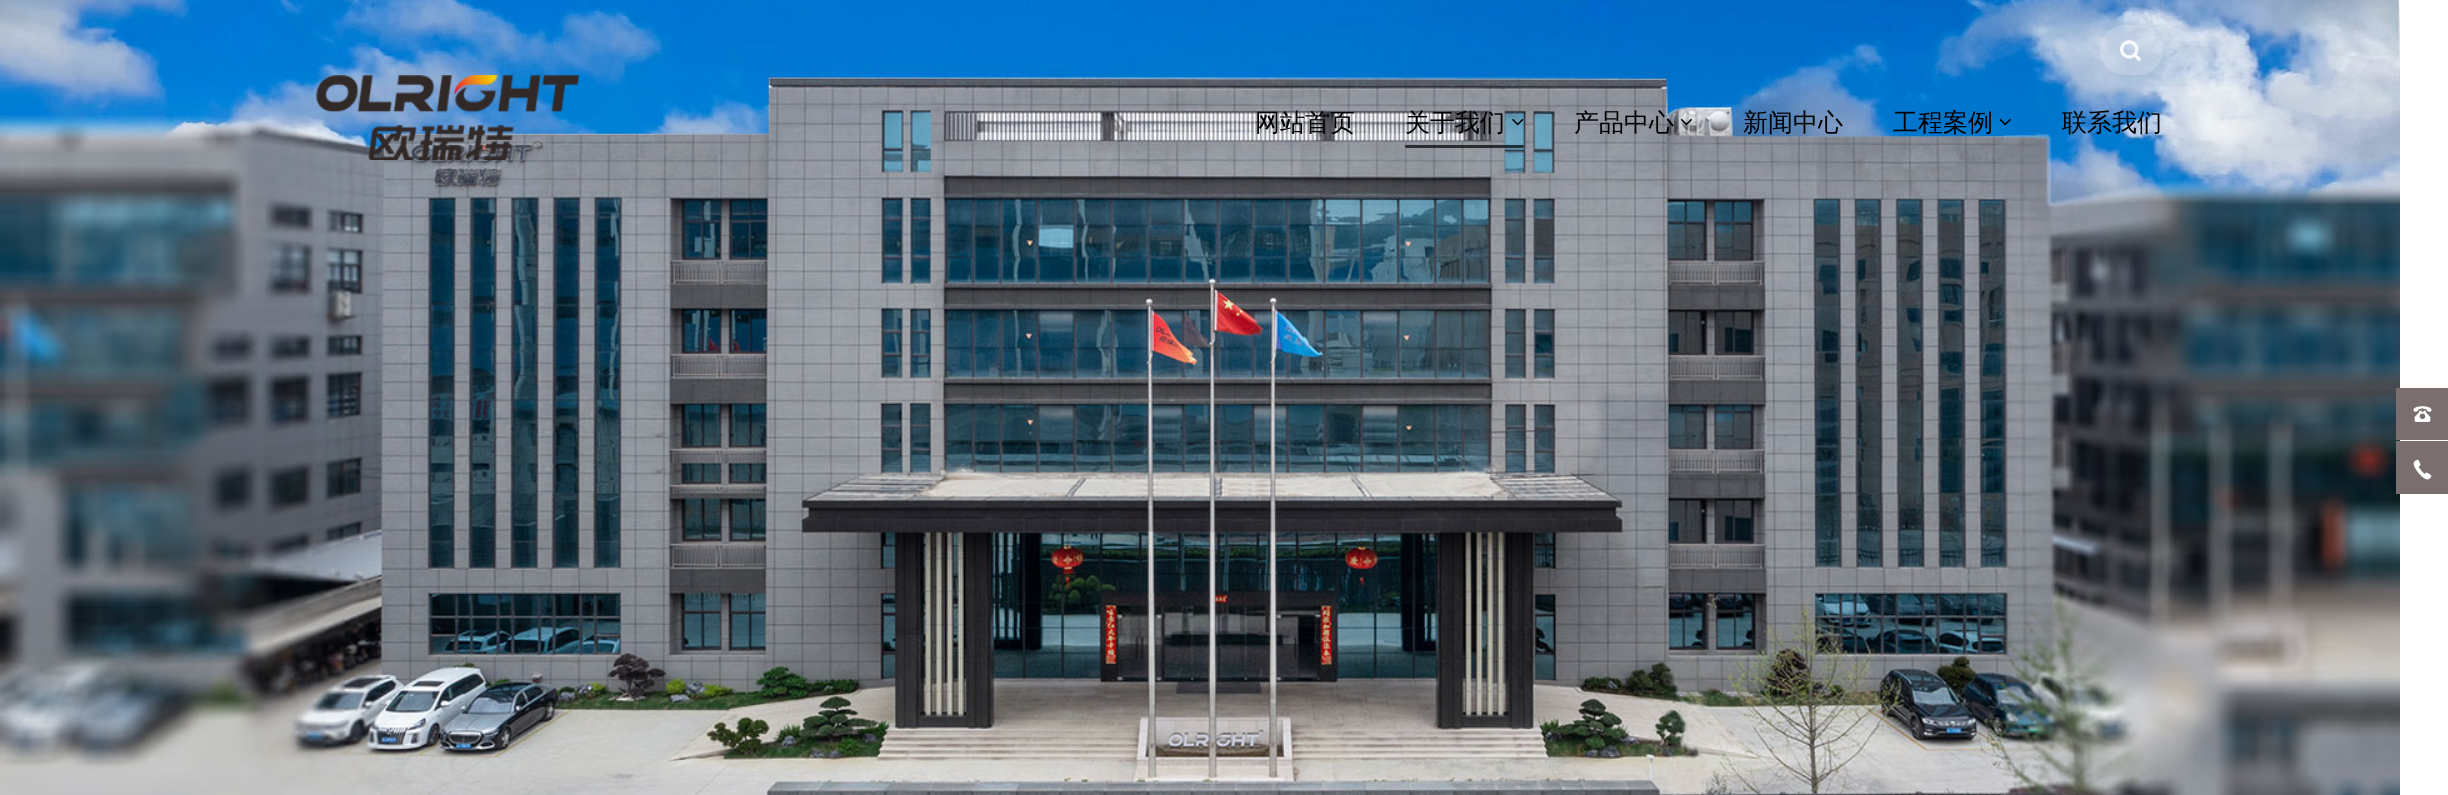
import math
import cairo

surface = cairo.ImageSurface(cairo.FORMAT_RGB24, 2448, 795)
ctx = cairo.Context(surface)
options = cairo.FontOptions()
options.set_hint_metrics(cairo.HINT_METRICS_OFF)
options.set_hint_style(cairo.HINT_STYLE_NONE)
ctx.set_font_options(options)
ctx.set_miter_limit(4)


def set_color(code):
    ctx.set_source_rgb(*(v / 255 for v in bytes.fromhex(code[-6:])))


def draw_text(x, y, s, family, size, color, bold=False, italic=False):
    ctx.select_font_face(family, cairo.FONT_SLANT_ITALIC if italic else cairo.FONT_SLANT_NORMAL, cairo.FONT_WEIGHT_BOLD if bold else cairo.FONT_WEIGHT_NORMAL)
    ctx.set_font_size(size)
    set_color(color)
    ctx.move_to(x, y)
    ctx.show_text(s)


def fill_rect(x, y, w, h, color):
    set_color(color)
    ctx.rectangle(x, y, w, h)
    ctx.fill()


def rounded_rect(x, y, w, h, r):
    ctx.new_sub_path()
    for i, (u, v) in enumerate([(x + w - r, y + h - r), (x + r, y + h - r), (x + r, y + r), (x + w - r, y + r)]):
        ctx.arc(u, v, r, i * math.pi / 2, (i + 1) * math.pi / 2)
    ctx.close_path()


def draw_image(path, x, y, w, h):
    ctx.save()
    ctx.set_source_surface(cairo.ImageSurface.create_from_png(path), x, y)
    ctx.rectangle(x, y, w, h)
    ctx.fill()
    ctx.restore()


set_color("#ffffff")
ctx.paint()
draw_image("assets/img1.png", 0, 0, 2400, 795)
ctx.set_source_rgba(1, 1, 1, 0.2)
rounded_rect(2100, 25, 63, 50, 25)
ctx.fill()
draw_image("assets/img2.png", 2120, 40, 22, 22)
draw_image("assets/img3.png", 316, 75, 263, 85)
draw_text(1255, 131, "网站首页", "WenQuanYi Zen Hei Medium", 25, "#000000")
draw_text(1405, 131, "关于我们", "WenQuanYi Zen Hei Medium", 25, "#000000")
draw_image("assets/img4.png", 1512, 119, 12, 7)
ctx.set_source_rgba(0, 0, 0, 0.7)
rounded_rect(1405, 145, 119, 3, 1.5)
ctx.fill()
draw_text(1574, 131, "产品中心", "WenQuanYi Zen Hei Medium", 25, "#000000")
draw_image("assets/img5.png", 1680, 118, 12, 8)
draw_text(1743, 131, "新闻中心", "WenQuanYi Zen Hei Medium", 25, "#000000")
draw_text(1893, 131, "工程案例", "WenQuanYi Zen Hei Medium", 25, "#000000")
draw_image("assets/img6.png", 1999, 118, 12, 8)
draw_text(2062, 131, "联系我们", "WenQuanYi Zen Hei Medium", 25, "#000000")
fill_rect(2396, 388, 52, 52, "#7a6e6e")
draw_image("assets/img7.png", 2413, 406, 19, 16)
fill_rect(2396, 441, 52, 53, "#7a6e6e")
draw_image("assets/img8.png", 2413, 459, 19, 21)
surface.write_to_png("output.png")
